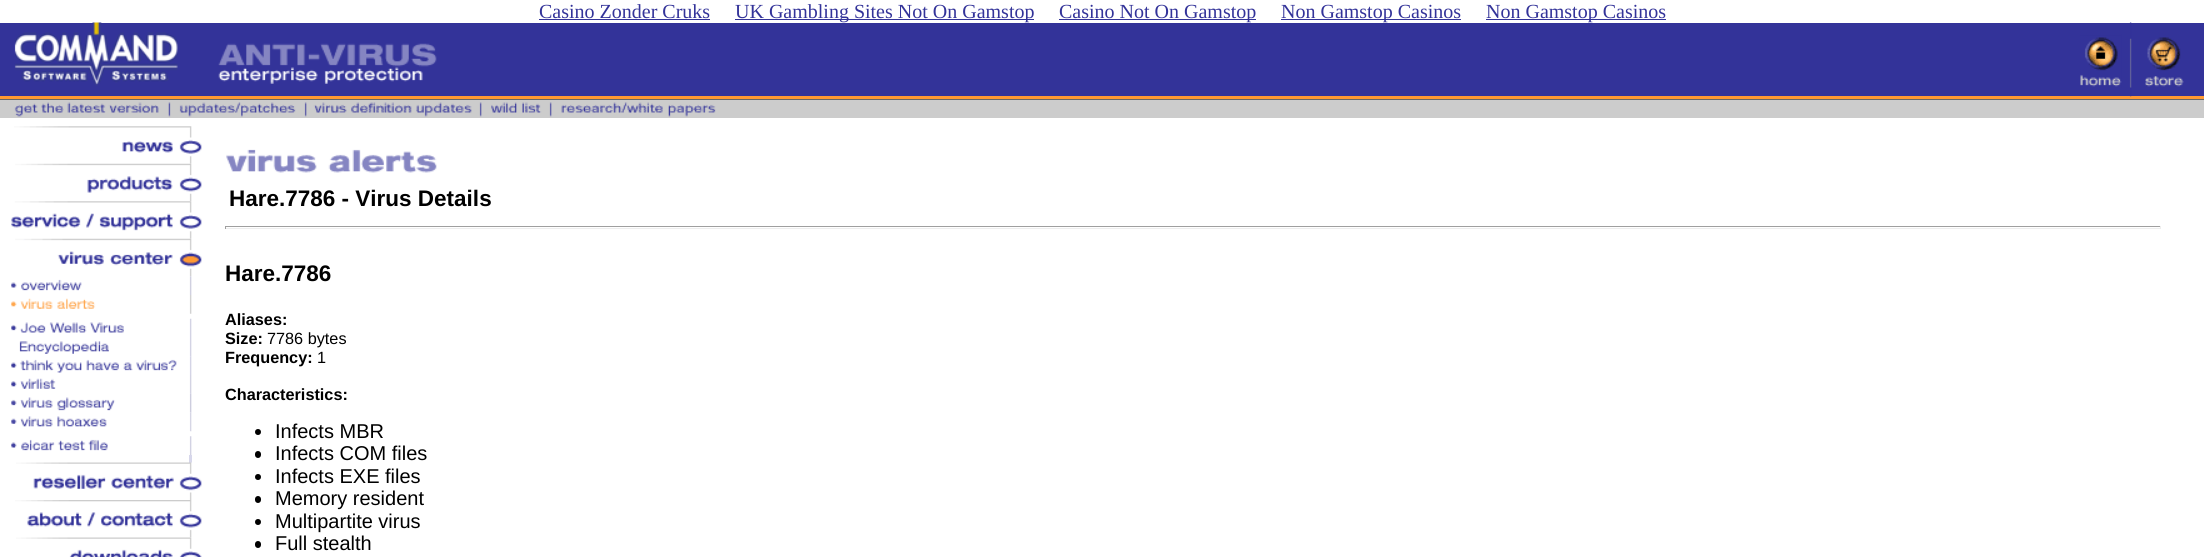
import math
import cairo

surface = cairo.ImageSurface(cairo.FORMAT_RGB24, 2204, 557)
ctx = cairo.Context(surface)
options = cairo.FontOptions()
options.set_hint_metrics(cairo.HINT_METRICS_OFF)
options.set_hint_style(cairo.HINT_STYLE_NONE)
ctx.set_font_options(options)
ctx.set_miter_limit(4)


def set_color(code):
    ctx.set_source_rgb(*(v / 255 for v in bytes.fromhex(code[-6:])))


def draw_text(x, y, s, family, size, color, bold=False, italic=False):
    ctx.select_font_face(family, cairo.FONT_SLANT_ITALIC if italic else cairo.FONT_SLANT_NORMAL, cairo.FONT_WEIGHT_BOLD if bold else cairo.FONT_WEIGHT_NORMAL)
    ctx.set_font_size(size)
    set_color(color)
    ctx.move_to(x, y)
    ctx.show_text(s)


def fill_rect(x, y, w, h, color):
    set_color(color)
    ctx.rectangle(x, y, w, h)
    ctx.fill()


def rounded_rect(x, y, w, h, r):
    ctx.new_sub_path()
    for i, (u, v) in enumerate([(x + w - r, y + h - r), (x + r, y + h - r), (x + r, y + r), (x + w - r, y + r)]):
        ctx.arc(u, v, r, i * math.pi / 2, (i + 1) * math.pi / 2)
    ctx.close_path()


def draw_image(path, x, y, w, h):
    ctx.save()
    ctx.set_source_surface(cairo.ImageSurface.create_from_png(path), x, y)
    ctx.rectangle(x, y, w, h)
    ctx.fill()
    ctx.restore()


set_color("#ffffff")
ctx.paint()
draw_text(539, 18, "Casino Zonder Cruks", "Liberation Serif", 20, "#333399")
fill_rect(539, 19, 171, 1, "#333399")
fill_rect(735, 19, 299, 1, "#333399")
draw_text(735, 18, "UK Gambling Sites Not On Gamstop", "Liberation Serif", 20, "#333399")
fill_rect(1059, 19, 197, 1, "#333399")
draw_text(1059, 18, "Casino Not On Gamstop", "Liberation Serif", 20, "#333399")
fill_rect(1281, 19, 180, 1, "#333399")
draw_text(1281, 18, "Non Gamstop Casinos", "Liberation Serif", 20, "#333399")
fill_rect(1486, 19, 180, 1, "#333399")
draw_text(1486, 18, "Non Gamstop Casinos", "Liberation Serif", 20, "#333399")
fill_rect(0, 23, 2204, 73, "#333399")
draw_image("assets/img1.png", 14, 22, 164, 64)
draw_image("assets/img2.png", 218, 43, 219, 41)
fill_rect(0, 96, 2204, 3, "#ff9933")
draw_image("assets/img3.png", 2080, 22, 52, 75)
draw_image("assets/img4.png", 2145, 37, 39, 50)
fill_rect(0, 99, 2204, 1, "#666666")
fill_rect(0, 100, 2204, 18, "#cccccc")
draw_image("assets/img5.png", 14, 102, 702, 15)
draw_image("assets/img6.png", 14, 126, 188, 38)
draw_image("assets/img7.png", 15, 163, 187, 39)
draw_image("assets/img8.png", 11, 201, 191, 38)
draw_image("assets/img9.png", 15, 238, 187, 39)
draw_image("assets/img10.png", 11, 276, 181, 19)
draw_image("assets/img11.png", 11, 295, 181, 19)
draw_image("assets/img12.png", 11, 318, 181, 39)
draw_image("assets/img13.png", 11, 356, 181, 19)
draw_image("assets/img14.png", 11, 375, 181, 19)
draw_image("assets/img15.png", 11, 393, 181, 20)
draw_image("assets/img16.png", 11, 412, 181, 20)
draw_image("assets/img17.png", 11, 436, 181, 19)
fill_rect(189, 455, 3, 8, "#d7d7eb")
draw_image("assets/img18.png", 16, 462, 186, 38)
draw_image("assets/img19.png", 15, 500, 187, 38)
draw_image("assets/img20.png", 16, 537, 186, 20)
draw_image("assets/img21.png", 226, 149, 211, 24)
draw_text(229, 206, "Hare.7786 - Virus Details", "Liberation Sans", 22.5, "#000000", bold=True)
fill_rect(225, 226, 1936, 1, "#9f9f9f")
fill_rect(2160, 226, 1, 3, "#eeeeee")
fill_rect(225, 228, 1936, 1, "#eeeeee")
fill_rect(225, 226, 1, 3, "#9f9f9f")
draw_text(225, 281, "Hare.7786", "Liberation Sans", 22.5, "#000000", bold=True)
draw_text(225, 325, "Aliases:", "Liberation Sans", 16.25, "#000000", bold=True)
draw_text(225, 344, "Size:", "Liberation Sans", 16.25, "#000000", bold=True)
draw_text(267, 344, "7786 bytes", "Liberation Sans", 16.25, "#000000")
draw_text(225, 363, "Frequency:", "Liberation Sans", 16.25, "#000000", bold=True)
draw_text(317, 363, "1", "Liberation Sans", 16.25, "#000000")
draw_text(225, 400, "Characteristics:", "Liberation Sans", 16.25, "#000000", bold=True)
ctx.new_path()
ctx.arc(258, 432, 3, 0, 2 * math.pi)
ctx.fill()
draw_text(275, 438, "Infects MBR", "Liberation Sans", 20, "#000000")
rounded_rect(255, 451, 6, 7, 3)
ctx.fill()
draw_text(275, 460, "Infects COM files", "Liberation Sans", 20, "#000000")
ctx.new_path()
ctx.arc(258, 477, 3, 0, 2 * math.pi)
ctx.fill()
draw_text(275, 483, "Infects EXE files", "Liberation Sans", 20, "#000000")
rounded_rect(255, 496, 6, 7, 3)
ctx.fill()
draw_text(275, 505, "Memory resident", "Liberation Sans", 20, "#000000")
ctx.new_path()
ctx.arc(258, 522, 3, 0, 2 * math.pi)
ctx.fill()
draw_text(275, 528, "Multipartite virus", "Liberation Sans", 20, "#000000")
rounded_rect(255, 541, 6, 7, 3)
ctx.fill()
draw_text(275, 550, "Full stealth", "Liberation Sans", 20, "#000000")
surface.write_to_png("output.png")
